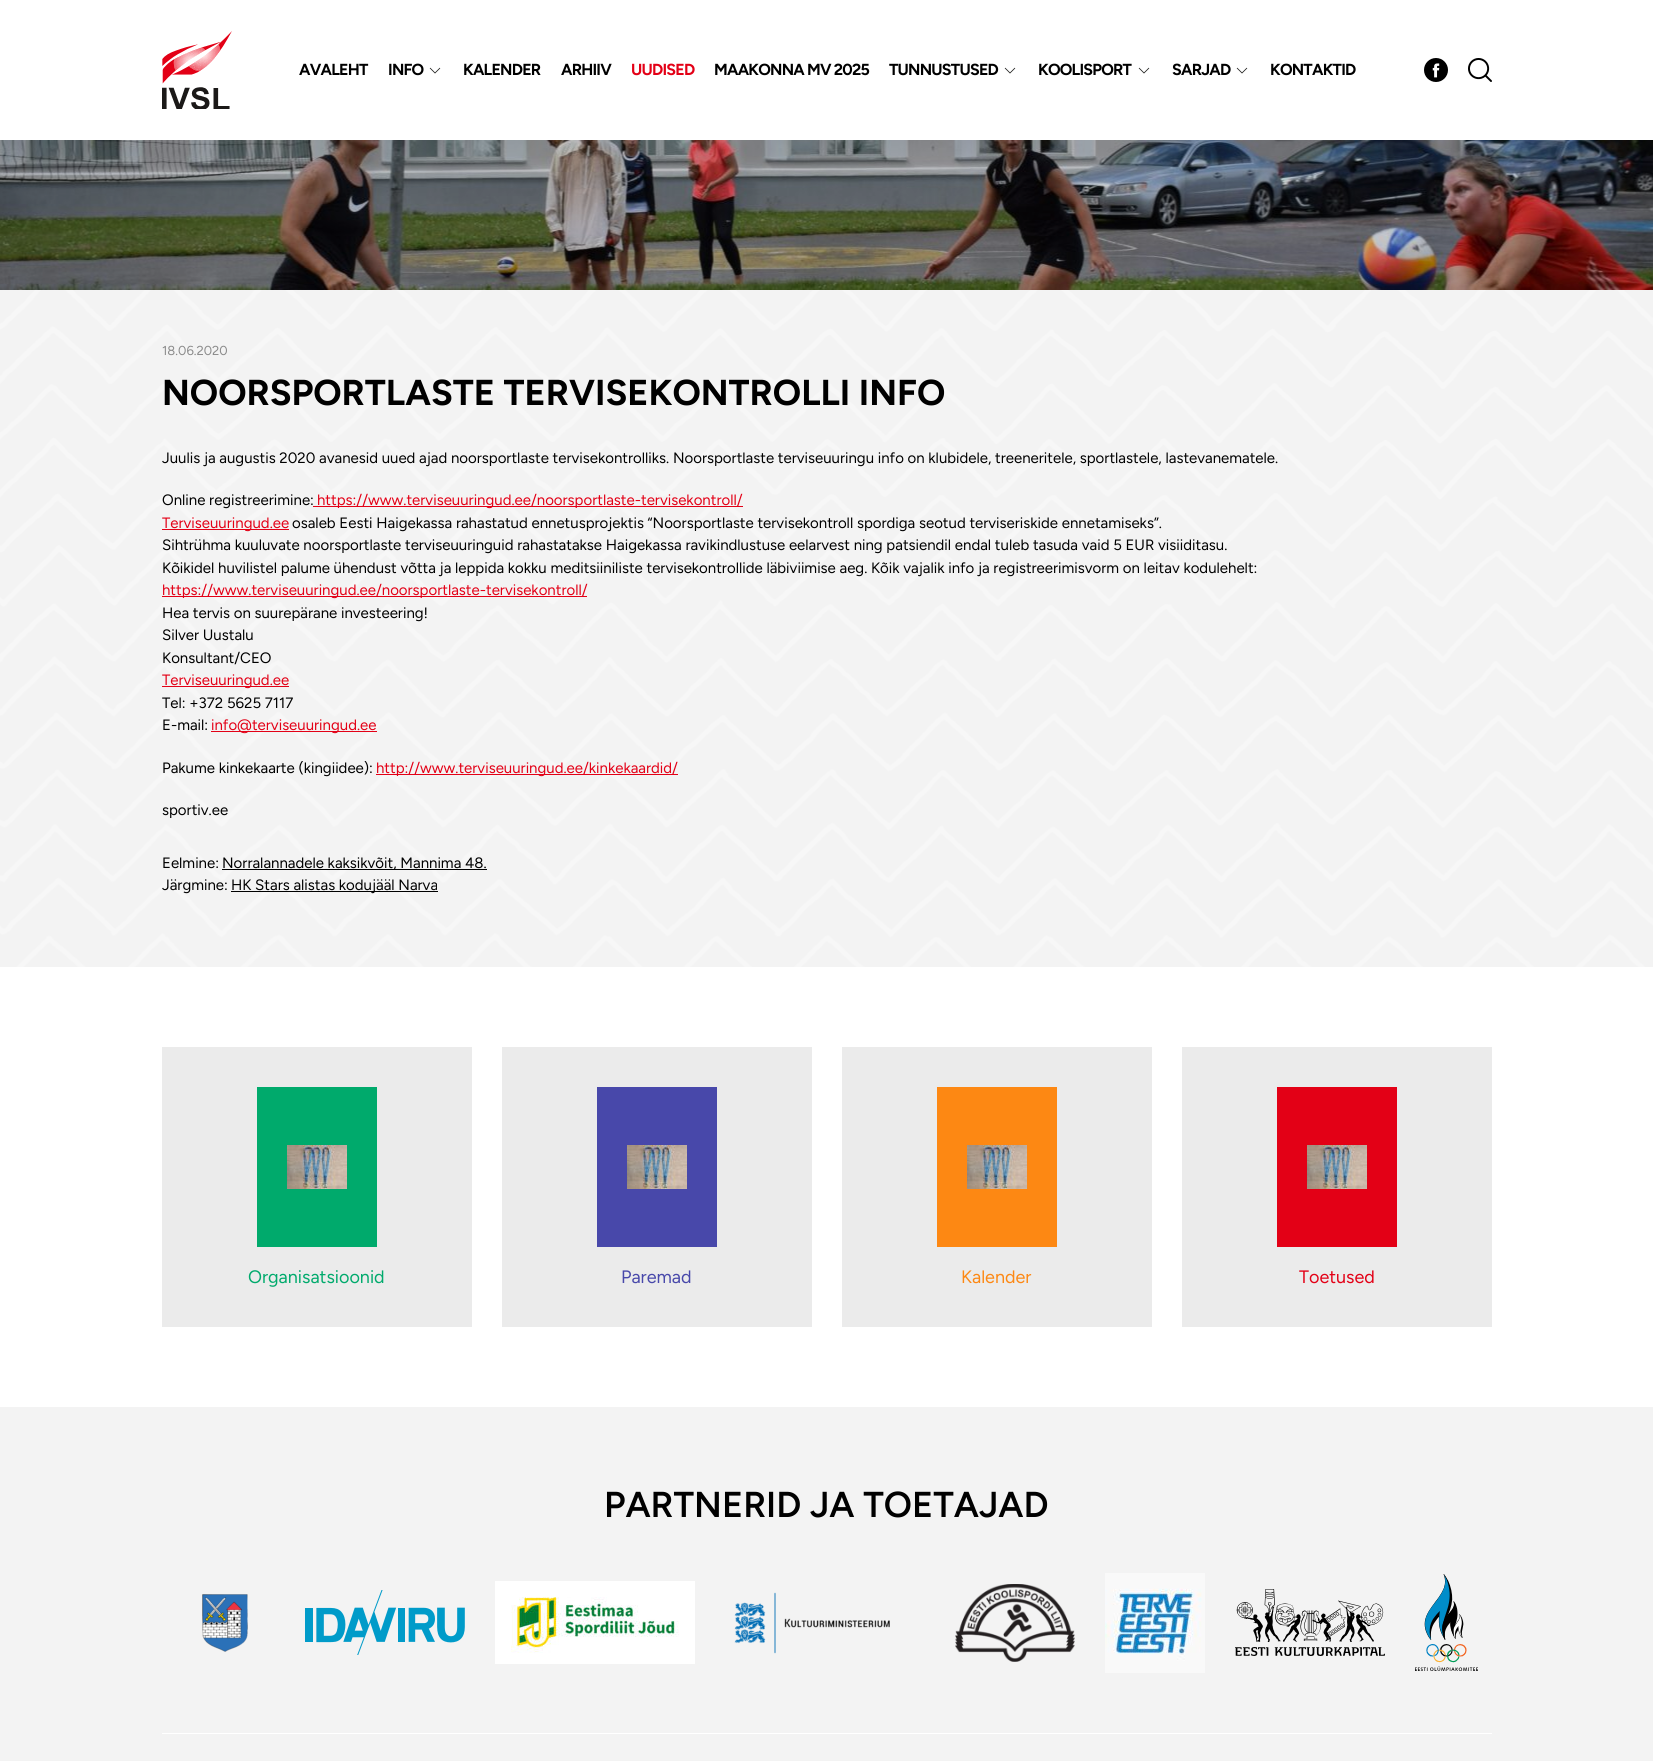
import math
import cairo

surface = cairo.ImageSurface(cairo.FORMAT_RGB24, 1653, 1761)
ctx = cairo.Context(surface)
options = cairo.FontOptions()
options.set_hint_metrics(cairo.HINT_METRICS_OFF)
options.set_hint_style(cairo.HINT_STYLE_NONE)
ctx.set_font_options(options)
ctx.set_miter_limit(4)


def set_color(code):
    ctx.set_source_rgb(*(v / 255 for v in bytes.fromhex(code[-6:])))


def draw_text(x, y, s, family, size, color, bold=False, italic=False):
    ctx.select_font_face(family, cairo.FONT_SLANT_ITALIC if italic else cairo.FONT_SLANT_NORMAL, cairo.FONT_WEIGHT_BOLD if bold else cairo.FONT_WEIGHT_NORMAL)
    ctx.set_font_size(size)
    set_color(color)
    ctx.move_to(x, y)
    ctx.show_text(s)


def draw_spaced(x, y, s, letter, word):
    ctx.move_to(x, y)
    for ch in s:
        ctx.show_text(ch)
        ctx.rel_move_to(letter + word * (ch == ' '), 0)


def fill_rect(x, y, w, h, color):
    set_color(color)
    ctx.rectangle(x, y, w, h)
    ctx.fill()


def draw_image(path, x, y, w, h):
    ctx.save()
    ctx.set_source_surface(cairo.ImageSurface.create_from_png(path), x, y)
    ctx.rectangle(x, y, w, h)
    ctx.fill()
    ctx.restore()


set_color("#f3f3f3")
ctx.paint()
fill_rect(0, 0, 1653, 140, "#ffffff")
draw_image("assets/img1.png", 162, 31, 70, 78)
ctx.select_font_face("Figtree", cairo.FONT_SLANT_NORMAL, cairo.FONT_WEIGHT_BOLD)
ctx.set_font_size(16)
set_color("#000000")
draw_spaced(299, 75, "AVALEHT", -0.75, 0)
draw_spaced(388, 75, "INFO", -0.75, 0)
ctx.new_path()
ctx.move_to(440, 68)
ctx.line_to(435, 73)
ctx.line_to(430, 68)
set_color("#1d1e1c")
ctx.set_line_width(0.8)
ctx.stroke()
set_color("#000000")
draw_spaced(463, 75, "KALENDER", -0.75, 0)
draw_spaced(561, 75, "ARHIIV", -0.75, 0)
set_color("#e30016")
draw_spaced(631, 75, "UUDISED", -0.75, 0)
set_color("#000000")
draw_spaced(714, 75, "MAAKONNA MV 2025", -0.75, 0)
draw_spaced(889, 75, "TUNNUSTUSED", -0.75, 0)
ctx.new_path()
ctx.move_to(1015, 68)
ctx.line_to(1010, 73)
ctx.line_to(1005, 68)
set_color("#1d1e1c")
ctx.stroke()
set_color("#000000")
draw_spaced(1038, 75, "KOOLISPORT", -0.75, 0)
ctx.new_path()
ctx.move_to(1149, 68)
ctx.line_to(1144, 73)
ctx.line_to(1139, 68)
set_color("#1d1e1c")
ctx.stroke()
set_color("#000000")
draw_spaced(1172, 75, "SARJAD", -0.75, 0)
ctx.new_path()
ctx.move_to(1247, 68)
ctx.line_to(1242, 73)
ctx.line_to(1237, 68)
set_color("#1d1e1c")
ctx.stroke()
set_color("#000000")
draw_spaced(1270, 75, "KONTAKTID", -0.75, 0)
draw_image("assets/img2.png", 1424, 58, 24, 24)
draw_image("assets/img3.png", 1468, 58, 24, 24)
draw_image("assets/img4.png", 0, 290, 1653, 677)
draw_image("assets/img5.png", 0, 140, 1653, 150)
draw_text(162, 355, "18.06.2020", "Figtree", 13, "#8b8b8b")
draw_text(162, 405, "NOORSPORTLASTE TERVISEKONTROLLI INFO", "Figtree", 36, "#000000", bold=True)
draw_text(162, 463, "Juulis ja augustis 2020 avanesid uued ajad noorsportlaste tervisekontrolliks. Noorsportlaste terviseuuringu info on klubidele, treeneritele, sportlastele, lastevanematele.", "Figtree", 15, "#000000")
draw_text(162, 505, "Online registreerimine:", "Figtree", 15, "#000000")
fill_rect(313, 506, 430, 1, "#e30016")
draw_text(317, 505, "https://www.terviseuuringud.ee/noorsportlaste-tervisekontroll/", "Figtree", 15, "#e30016")
fill_rect(162, 529, 127, 1, "#e30016")
draw_text(162, 528, "Terviseuuringud.ee", "Figtree", 15, "#e30016")
draw_text(292, 528, "osaleb Eesti Haigekassa rahastatud ennetusprojektis “Noorsportlaste tervisekontroll spordiga seotud terviseriskide ennetamiseks”.", "Figtree", 15, "#000000")
draw_text(162, 550, "Sihtrühma kuuluvate noorsportlaste terviseuuringuid rahastatakse Haigekassa ravikindlustuse eelarvest ning patsiendil endal tuleb tasuda vaid 5 EUR visiiditasu.", "Figtree", 15, "#000000")
draw_text(162, 573, "Kõikidel huvilistel palume ühendust võtta ja leppida kokku meditsiiniliste tervisekontrollide läbiviimise aeg. Kõik vajalik info ja registreerimisvorm on leitav kodulehelt:", "Figtree", 15, "#000000")
fill_rect(162, 596, 425, 1, "#e30016")
draw_text(162, 595, "https://www.terviseuuringud.ee/noorsportlaste-tervisekontroll/", "Figtree", 15, "#e30016")
draw_text(162, 618, "Hea tervis on suurepärane investeering!", "Figtree", 15, "#000000")
draw_text(162, 640, "Silver Uustalu", "Figtree", 15, "#000000")
draw_text(162, 663, "Konsultant/CEO", "Figtree", 15, "#000000")
fill_rect(162, 686, 127, 1, "#e30016")
draw_text(162, 685, "Terviseuuringud.ee", "Figtree", 15, "#e30016")
draw_text(162, 708, "Tel: +372 5625 7117", "Figtree", 15, "#000000")
draw_text(162, 730, "E-mail:", "Figtree", 15, "#000000")
fill_rect(211, 731, 166, 1, "#e30016")
draw_text(211, 730, "info@terviseuuringud.ee", "Figtree", 15, "#e30016")
draw_text(162, 773, "Pakume kinkekaarte (kingiidee):", "Figtree", 15, "#000000")
fill_rect(376, 774, 302, 1, "#e30016")
draw_text(376, 773, "http://www.terviseuuringud.ee/kinkekaardid/", "Figtree", 15, "#e30016")
draw_text(162, 815, "sportiv.ee", "Figtree", 15, "#000000")
draw_text(162, 868, "Eelmine:", "Figtree", 15, "#000000")
fill_rect(222, 869, 265, 1, "#000000")
draw_text(222, 868, "Norralannadele kaksikvõit, Mannima 48.", "Figtree", 15, "#000000")
draw_text(162, 890, "Järgmine:", "Figtree", 15, "#000000")
fill_rect(231, 891, 207, 1, "#000000")
draw_text(231, 890, "HK Stars alistas kodujääl Narva", "Figtree", 15, "#000000")
fill_rect(0, 967, 1653, 440, "#ffffff")
fill_rect(162, 1047, 310, 280, "#ebebeb")
fill_rect(257, 1087, 120, 160, "#00aa6c")
draw_image("assets/img6.png", 287, 1145, 60, 44)
draw_text(248, 1283, "Organisatsioonid", "Figtree", 18, "#00aa6c")
fill_rect(502, 1047, 310, 280, "#ebebeb")
fill_rect(597, 1087, 120, 160, "#4848aa")
draw_image("assets/img6.png", 627, 1145, 60, 44)
draw_text(621, 1283, "Paremad", "Figtree", 18, "#4848aa")
fill_rect(842, 1047, 310, 280, "#ebebeb")
fill_rect(937, 1087, 120, 160, "#fd8813")
draw_image("assets/img6.png", 967, 1145, 60, 44)
draw_text(961, 1283, "Kalender", "Figtree", 18, "#fd8813")
fill_rect(1182, 1047, 310, 280, "#ebebeb")
fill_rect(1277, 1087, 120, 160, "#e30016")
draw_image("assets/img6.png", 1307, 1145, 60, 44)
draw_text(1299, 1283, "Toetused", "Figtree", 18, "#e30016")
draw_text(604, 1517, "PARTNERID JA TOETAJAD", "Figtree SemiBold", 36, "#000000")
draw_image("assets/img7.png", 202, 1594, 46, 58)
draw_image("assets/img8.png", 305, 1590, 160, 65)
draw_image("assets/img9.png", 495, 1581, 200, 83)
draw_image("assets/img10.png", 734, 1592, 156, 62)
draw_image("assets/img11.png", 955, 1584, 120, 78)
draw_image("assets/img12.png", 1105, 1573, 100, 100)
draw_image("assets/img13.png", 1235, 1589, 150, 67)
draw_image("assets/img14.png", 1415, 1574, 63, 97)
fill_rect(162, 1733, 1330, 1, "#ffffff")
surface.write_to_png("output.png")
